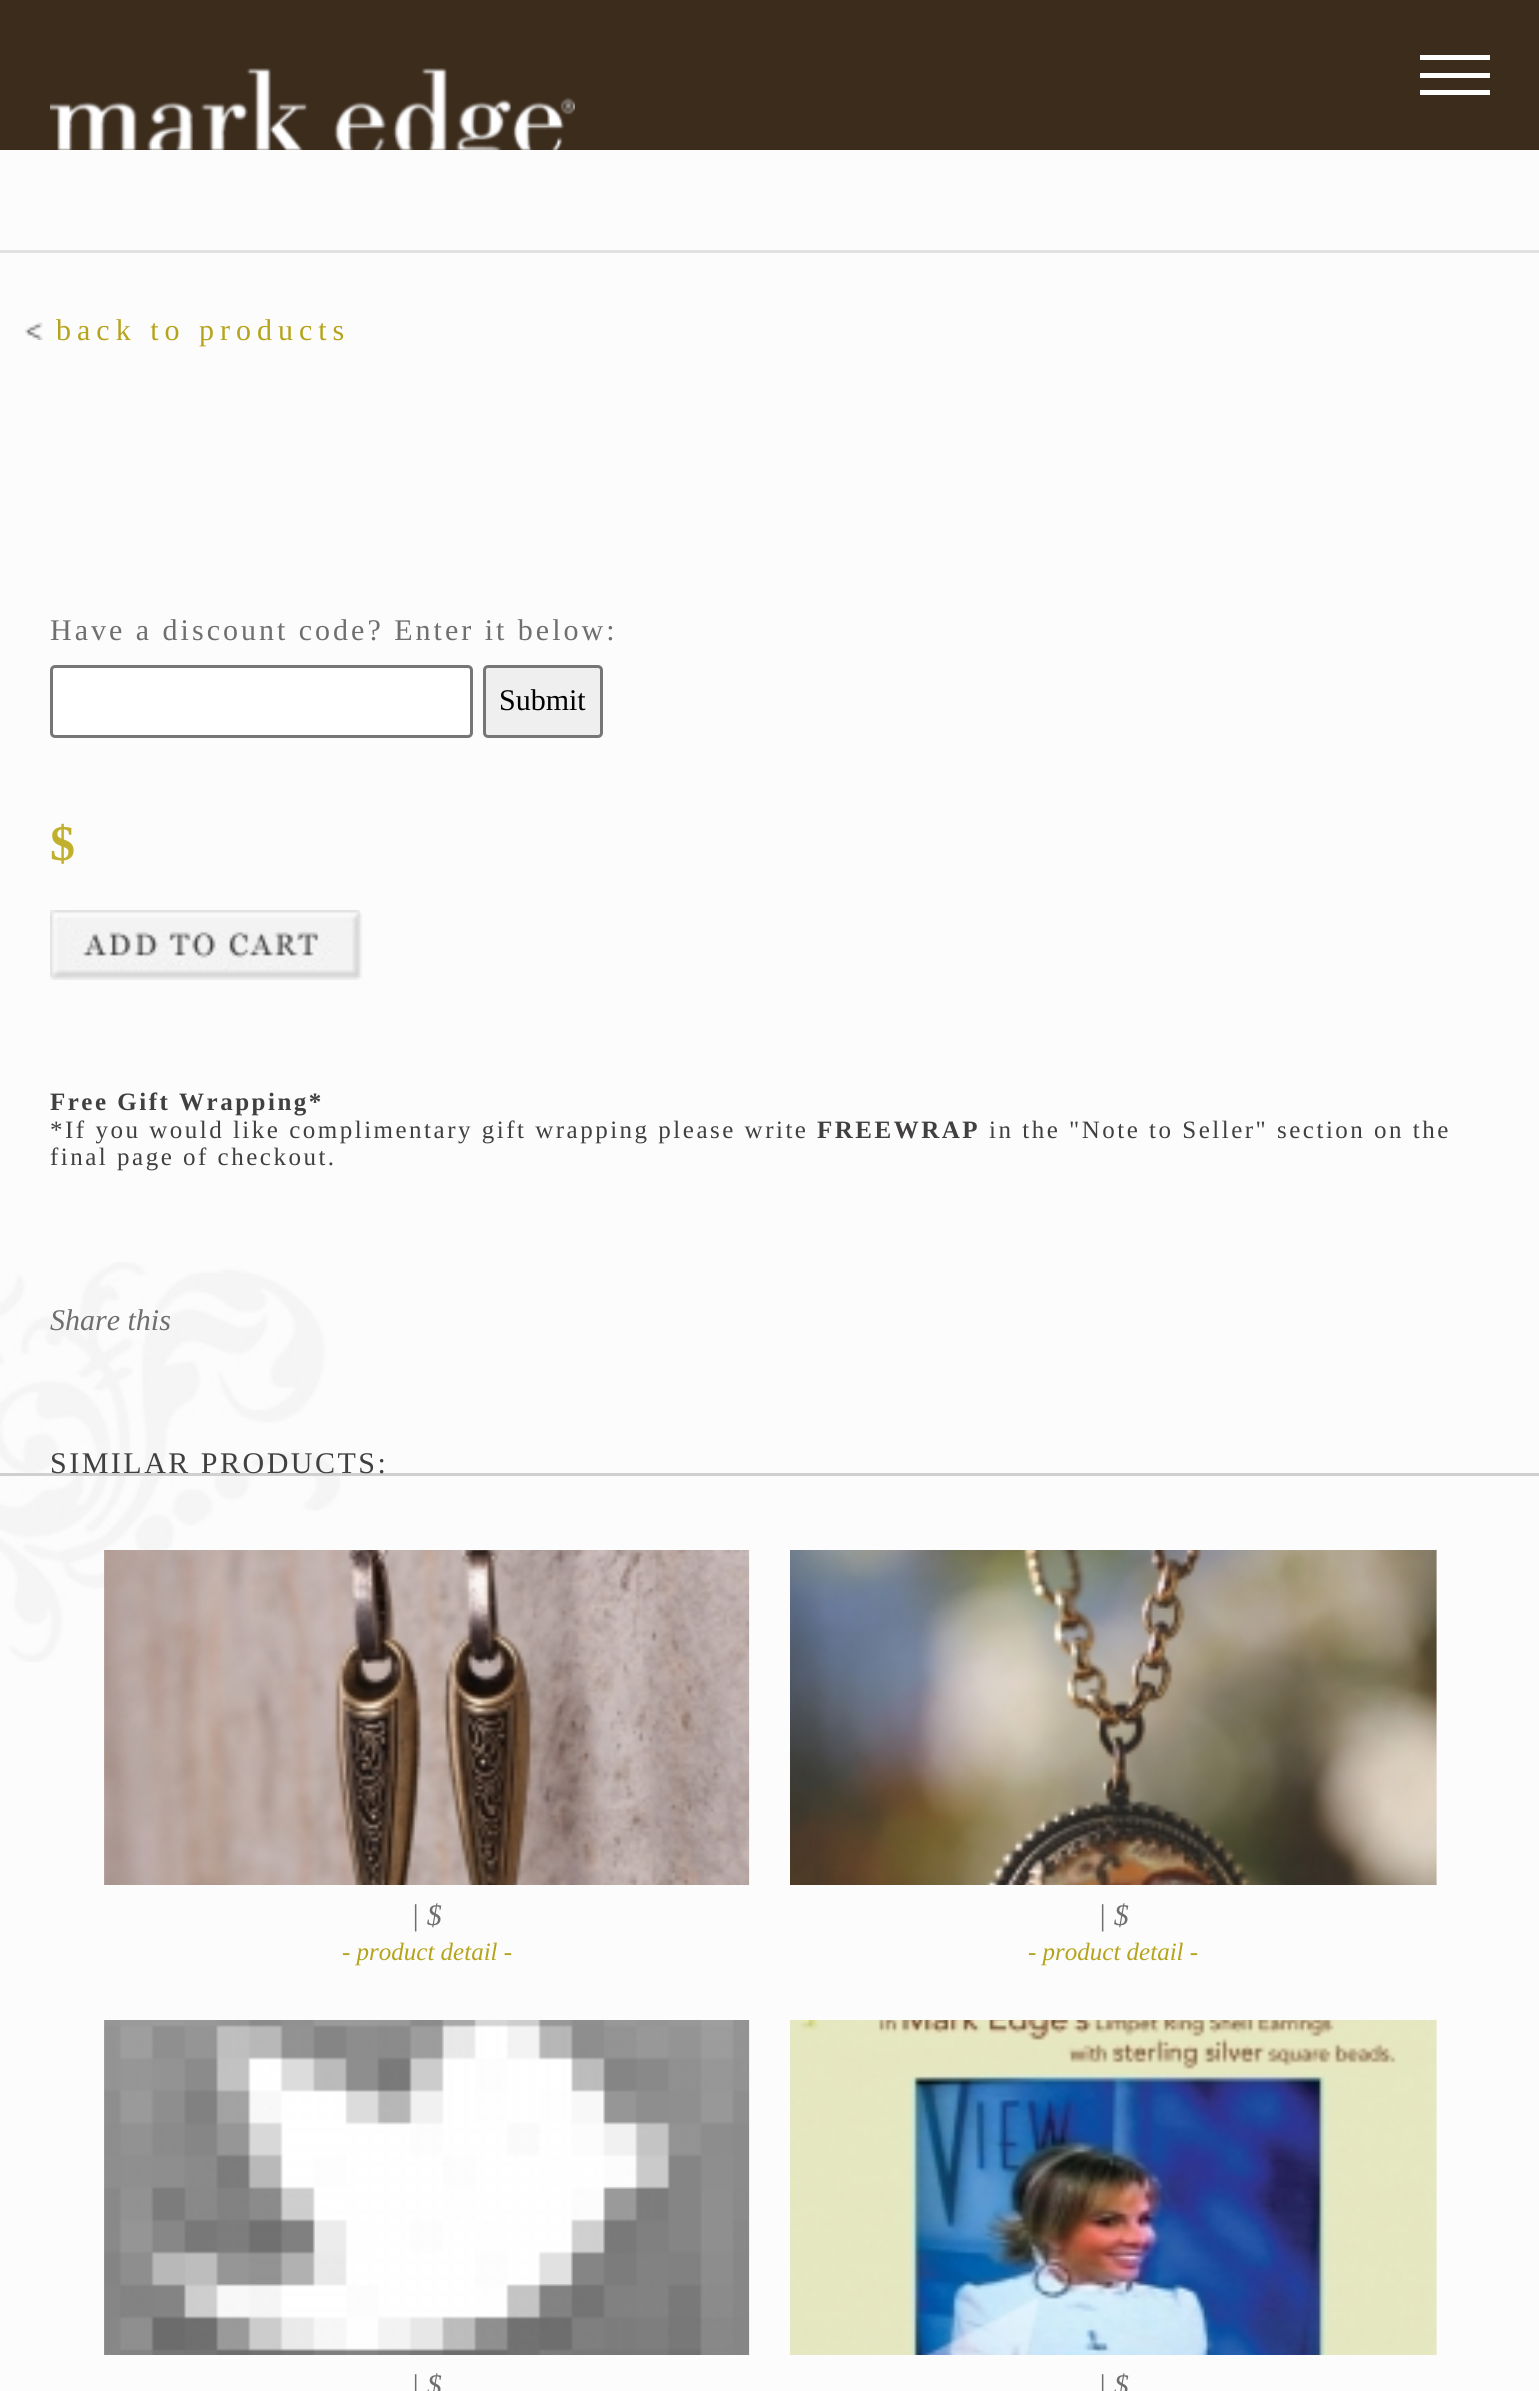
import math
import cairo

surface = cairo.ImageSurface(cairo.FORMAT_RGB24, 1539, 2391)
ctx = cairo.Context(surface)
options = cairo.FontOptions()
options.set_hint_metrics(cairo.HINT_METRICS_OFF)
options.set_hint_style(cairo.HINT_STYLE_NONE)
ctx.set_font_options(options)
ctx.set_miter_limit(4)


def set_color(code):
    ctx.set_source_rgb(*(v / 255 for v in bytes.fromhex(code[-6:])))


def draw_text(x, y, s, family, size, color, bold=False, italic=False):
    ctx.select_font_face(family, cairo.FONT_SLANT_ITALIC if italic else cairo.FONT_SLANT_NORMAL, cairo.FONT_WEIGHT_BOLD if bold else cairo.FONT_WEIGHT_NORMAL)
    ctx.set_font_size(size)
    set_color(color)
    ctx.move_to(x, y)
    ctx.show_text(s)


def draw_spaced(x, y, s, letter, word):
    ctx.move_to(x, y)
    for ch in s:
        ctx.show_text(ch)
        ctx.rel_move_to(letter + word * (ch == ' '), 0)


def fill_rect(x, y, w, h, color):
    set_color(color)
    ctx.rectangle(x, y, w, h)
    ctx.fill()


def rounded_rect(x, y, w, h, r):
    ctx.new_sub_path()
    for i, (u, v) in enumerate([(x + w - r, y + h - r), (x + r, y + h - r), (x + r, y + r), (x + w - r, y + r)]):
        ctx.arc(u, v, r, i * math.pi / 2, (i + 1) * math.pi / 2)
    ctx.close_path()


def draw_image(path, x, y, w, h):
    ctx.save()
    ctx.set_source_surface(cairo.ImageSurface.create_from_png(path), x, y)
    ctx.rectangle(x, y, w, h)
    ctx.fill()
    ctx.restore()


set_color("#fcfcfc")
ctx.paint()
draw_image("assets/img1.png", 0, 1262, 340, 400)
fill_rect(0, 0, 1539, 150, "#3c2c1c")
draw_image("assets/img2.png", 50, 68, 525, 82)
fill_rect(1420, 55, 70, 5, "#ffffff")
fill_rect(1420, 73, 70, 5, "#ffffff")
fill_rect(1420, 90, 70, 5, "#ffffff")
fill_rect(0, 250, 1539, 3, "#e2e2e2")
draw_image("assets/img3.png", 25, 322, 18, 18)
ctx.select_font_face("Liberation Serif")
ctx.set_font_size(30)
set_color("#b5a41b")
draw_spaced(56, 340, "back to products", 6, 0)
set_color("#6f6f6f")
draw_spaced(50, 640, "Have a discount code? Enter it below:", 3, 0)
set_color("#ffffff")
rounded_rect(51.5, 666.5, 420, 70, 3.5)
ctx.fill_preserve()
set_color("#767676")
ctx.set_line_width(3)
ctx.stroke()
set_color("#efefef")
rounded_rect(484.5, 666.5, 117, 70, 3.5)
ctx.fill_preserve()
set_color("#767676")
ctx.stroke()
draw_text(499, 710, "Submit", "Liberation Serif", 30, "#000000")
ctx.select_font_face("Liberation Serif", cairo.FONT_SLANT_NORMAL, cairo.FONT_WEIGHT_BOLD)
ctx.set_font_size(50)
set_color("#c0b02c")
draw_spaced(50, 860, "$", 5, 0)
draw_image("assets/img4.png", 50, 910, 313, 70)
ctx.set_font_size(25)
set_color("#413f3f")
draw_spaced(50, 1110, "Free Gift Wrapping*", 2.5, 0)
ctx.select_font_face("Liberation Serif")
draw_spaced(50, 1138, "*If you would like complimentary gift wrapping please write", 2.5, 0)
ctx.select_font_face("Liberation Serif", cairo.FONT_SLANT_NORMAL, cairo.FONT_WEIGHT_BOLD)
draw_spaced(817, 1138, "FREEWRAP", 2.5, 0)
ctx.select_font_face("Liberation Serif")
draw_spaced(989, 1138, "in the \"Note to Seller\" section on the", 2.5, 0)
draw_spaced(50, 1165, "final page of checkout.", 2.5, 0)
draw_text(50, 1330, "Share this", "Liberation Serif", 30, "#6f6f6f", italic=True)
fill_rect(0, 1473, 1539, 3, "#d0d0d0")
ctx.select_font_face("Liberation Serif")
set_color("#413f3f")
draw_spaced(50, 1473, "SIMILAR PRODUCTS:", 2.5, 0)
draw_image("assets/img5.png", 104, 1550, 646, 335)
draw_text(411, 1925, "| $", "Liberation Serif", 30, "#6f6f6f", italic=True)
draw_text(342, 1960, "- product detail -", "Liberation Serif", 25, "#b5a41b", italic=True)
draw_image("assets/img6.png", 790, 1550, 647, 335)
draw_text(1098, 1925, "| $", "Liberation Serif", 30, "#6f6f6f", italic=True)
draw_text(1028, 1960, "- product detail -", "Liberation Serif", 25, "#b5a41b", italic=True)
draw_image("assets/img7.png", 104, 2020, 646, 335)
draw_text(411, 2395, "| $", "Liberation Serif", 30, "#6f6f6f", italic=True)
draw_image("assets/img8.png", 790, 2020, 647, 335)
draw_text(1098, 2395, "| $", "Liberation Serif", 30, "#6f6f6f", italic=True)
surface.write_to_png("output.png")
